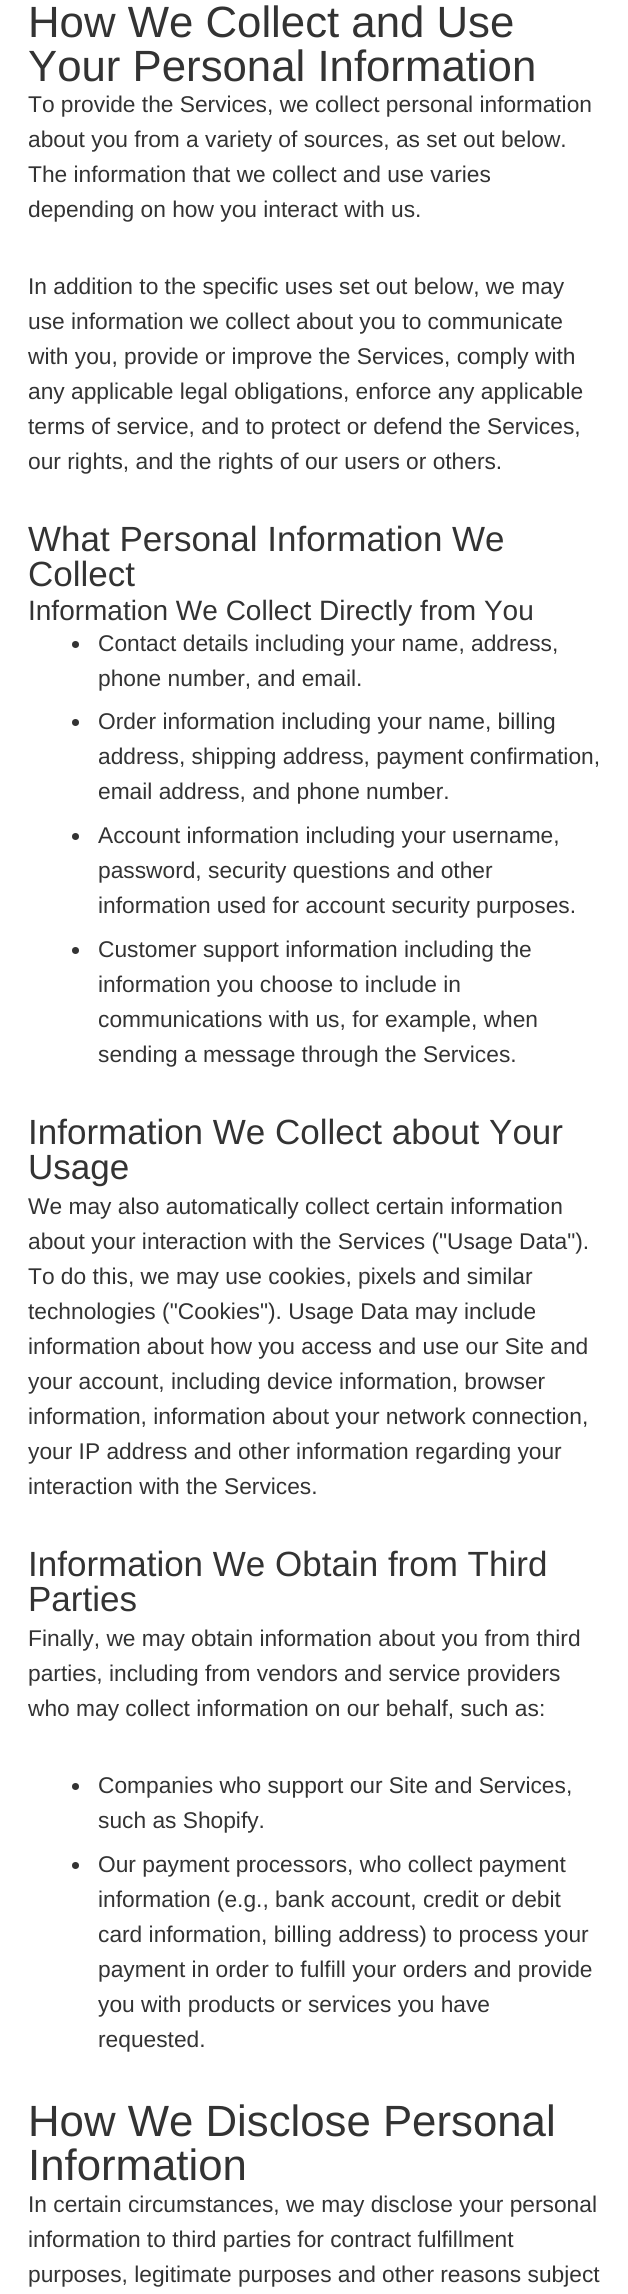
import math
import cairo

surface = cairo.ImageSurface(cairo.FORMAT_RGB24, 628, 2294)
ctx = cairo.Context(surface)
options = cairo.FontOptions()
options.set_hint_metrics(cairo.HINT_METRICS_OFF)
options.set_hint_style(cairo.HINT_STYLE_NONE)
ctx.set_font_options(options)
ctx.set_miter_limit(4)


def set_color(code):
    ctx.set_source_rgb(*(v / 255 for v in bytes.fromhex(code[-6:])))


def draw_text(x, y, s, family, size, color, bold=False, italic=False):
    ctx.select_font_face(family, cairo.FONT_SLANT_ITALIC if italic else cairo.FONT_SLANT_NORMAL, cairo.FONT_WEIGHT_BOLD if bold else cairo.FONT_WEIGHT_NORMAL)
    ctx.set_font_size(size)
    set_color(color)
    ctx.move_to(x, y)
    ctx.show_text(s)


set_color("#ffffff")
ctx.paint()
draw_text(28, 37, "How We Collect and Use", "Liberation Sans", 43.75, "#333333")
draw_text(28, 81, "Your Personal Information", "Liberation Sans", 43.75, "#333333")
draw_text(28, 112, "To provide the Services, we collect personal information", "Liberation Sans", 22.75, "#333333")
draw_text(28, 147, "about you from a variety of sources, as set out below.", "Liberation Sans", 22.75, "#333333")
draw_text(28, 182, "The information that we collect and use varies", "Liberation Sans", 22.75, "#333333")
draw_text(28, 217, "depending on how you interact with us.", "Liberation Sans", 22.75, "#333333")
draw_text(28, 294, "In addition to the specific uses set out below, we may", "Liberation Sans", 22.75, "#333333")
draw_text(28, 329, "use information we collect about you to communicate", "Liberation Sans", 22.75, "#333333")
draw_text(28, 364, "with you, provide or improve the Services, comply with", "Liberation Sans", 22.75, "#333333")
draw_text(28, 399, "any applicable legal obligations, enforce any applicable", "Liberation Sans", 22.75, "#333333")
draw_text(28, 434, "terms of service, and to protect or defend the Services,", "Liberation Sans", 22.75, "#333333")
draw_text(28, 469, "our rights, and the rights of our users or others.", "Liberation Sans", 22.75, "#333333")
draw_text(28, 551, "What Personal Information We", "Liberation Sans", 35, "#333333")
draw_text(28, 586, "Collect", "Liberation Sans", 35, "#333333")
draw_text(28, 620, "Information We Collect Directly from You", "Liberation Sans", 28, "#333333")
ctx.new_path()
ctx.arc(75.5, 644.5, 3.5, 0, 2 * math.pi)
ctx.fill()
draw_text(98, 651, "Contact details including your name, address,", "Liberation Sans", 22.75, "#333333")
draw_text(98, 686, "phone number, and email.", "Liberation Sans", 22.75, "#333333")
ctx.new_path()
ctx.arc(75.5, 722.5, 3.5, 0, 2 * math.pi)
ctx.fill()
draw_text(98, 729, "Order information including your name, billing", "Liberation Sans", 22.75, "#333333")
draw_text(98, 764, "address, shipping address, payment confirmation,", "Liberation Sans", 22.75, "#333333")
draw_text(98, 799, "email address, and phone number.", "Liberation Sans", 22.75, "#333333")
ctx.new_path()
ctx.arc(75.5, 836.5, 3.5, 0, 2 * math.pi)
ctx.fill()
draw_text(98, 843, "Account information including your username,", "Liberation Sans", 22.75, "#333333")
draw_text(98, 878, "password, security questions and other", "Liberation Sans", 22.75, "#333333")
draw_text(98, 913, "information used for account security purposes.", "Liberation Sans", 22.75, "#333333")
ctx.new_path()
ctx.arc(75.5, 950.5, 3.5, 0, 2 * math.pi)
ctx.fill()
draw_text(98, 957, "Customer support information including the", "Liberation Sans", 22.75, "#333333")
draw_text(98, 992, "information you choose to include in", "Liberation Sans", 22.75, "#333333")
draw_text(98, 1027, "communications with us, for example, when", "Liberation Sans", 22.75, "#333333")
draw_text(98, 1062, "sending a message through the Services.", "Liberation Sans", 22.75, "#333333")
draw_text(28, 1144, "Information We Collect about Your", "Liberation Sans", 35, "#333333")
draw_text(28, 1179, "Usage", "Liberation Sans", 35, "#333333")
draw_text(28, 1214, "We may also automatically collect certain information", "Liberation Sans", 22.75, "#333333")
draw_text(28, 1249, "about your interaction with the Services (\"Usage Data\").", "Liberation Sans", 22.75, "#333333")
draw_text(28, 1284, "To do this, we may use cookies, pixels and similar", "Liberation Sans", 22.75, "#333333")
draw_text(28, 1319, "technologies (\"Cookies\"). Usage Data may include", "Liberation Sans", 22.75, "#333333")
draw_text(28, 1354, "information about how you access and use our Site and", "Liberation Sans", 22.75, "#333333")
draw_text(28, 1389, "your account, including device information, browser", "Liberation Sans", 22.75, "#333333")
draw_text(28, 1424, "information, information about your network connection,", "Liberation Sans", 22.75, "#333333")
draw_text(28, 1459, "your IP address and other information regarding your", "Liberation Sans", 22.75, "#333333")
draw_text(28, 1494, "interaction with the Services.", "Liberation Sans", 22.75, "#333333")
draw_text(28, 1576, "Information We Obtain from Third", "Liberation Sans", 35, "#333333")
draw_text(28, 1611, "Parties", "Liberation Sans", 35, "#333333")
draw_text(28, 1646, "Finally, we may obtain information about you from third", "Liberation Sans", 22.75, "#333333")
draw_text(28, 1681, "parties, including from vendors and service providers", "Liberation Sans", 22.75, "#333333")
draw_text(28, 1716, "who may collect information on our behalf, such as:", "Liberation Sans", 22.75, "#333333")
ctx.new_path()
ctx.arc(75.5, 1786.5, 3.5, 0, 2 * math.pi)
ctx.fill()
draw_text(98, 1793, "Companies who support our Site and Services,", "Liberation Sans", 22.75, "#333333")
draw_text(98, 1828, "such as Shopify.", "Liberation Sans", 22.75, "#333333")
ctx.new_path()
ctx.arc(75.5, 1865.5, 3.5, 0, 2 * math.pi)
ctx.fill()
draw_text(98, 1872, "Our payment processors, who collect payment", "Liberation Sans", 22.75, "#333333")
draw_text(98, 1907, "information (e.g., bank account, credit or debit", "Liberation Sans", 22.75, "#333333")
draw_text(98, 1942, "card information, billing address) to process your", "Liberation Sans", 22.75, "#333333")
draw_text(98, 1977, "payment in order to fulfill your orders and provide", "Liberation Sans", 22.75, "#333333")
draw_text(98, 2012, "you with products or services you have", "Liberation Sans", 22.75, "#333333")
draw_text(98, 2047, "requested.", "Liberation Sans", 22.75, "#333333")
draw_text(28, 2136, "How We Disclose Personal", "Liberation Sans", 43.75, "#333333")
draw_text(28, 2180, "Information", "Liberation Sans", 43.75, "#333333")
draw_text(28, 2212, "In certain circumstances, we may disclose your personal", "Liberation Sans", 22.75, "#333333")
draw_text(28, 2247, "information to third parties for contract fulfillment", "Liberation Sans", 22.75, "#333333")
draw_text(28, 2282, "purposes, legitimate purposes and other reasons subject", "Liberation Sans", 22.75, "#333333")
surface.write_to_png("output.png")
